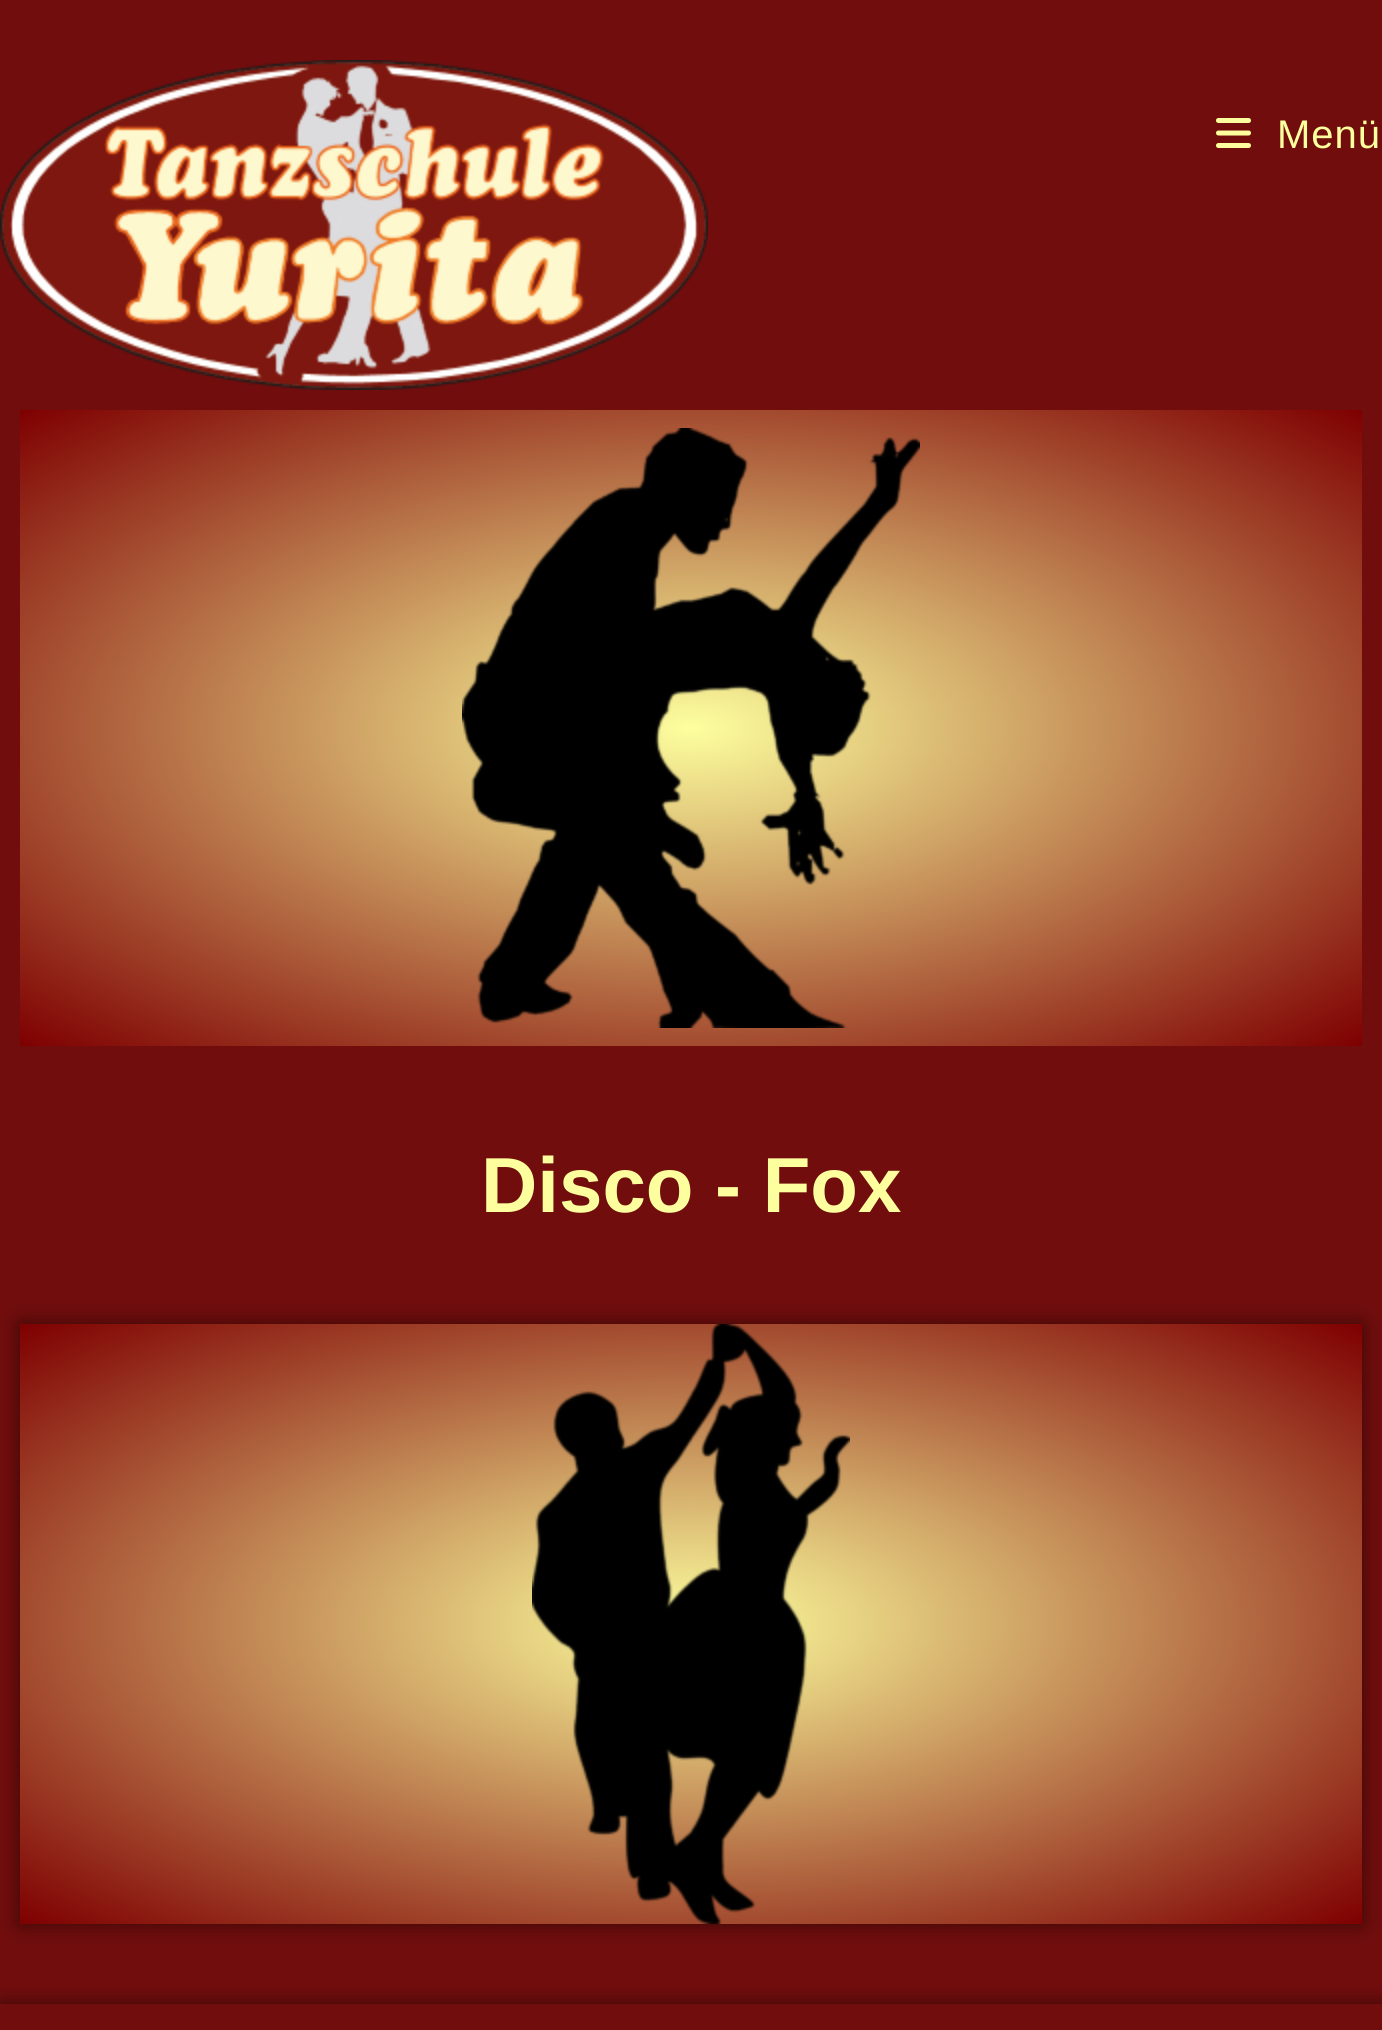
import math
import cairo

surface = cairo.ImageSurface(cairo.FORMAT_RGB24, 1382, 2030)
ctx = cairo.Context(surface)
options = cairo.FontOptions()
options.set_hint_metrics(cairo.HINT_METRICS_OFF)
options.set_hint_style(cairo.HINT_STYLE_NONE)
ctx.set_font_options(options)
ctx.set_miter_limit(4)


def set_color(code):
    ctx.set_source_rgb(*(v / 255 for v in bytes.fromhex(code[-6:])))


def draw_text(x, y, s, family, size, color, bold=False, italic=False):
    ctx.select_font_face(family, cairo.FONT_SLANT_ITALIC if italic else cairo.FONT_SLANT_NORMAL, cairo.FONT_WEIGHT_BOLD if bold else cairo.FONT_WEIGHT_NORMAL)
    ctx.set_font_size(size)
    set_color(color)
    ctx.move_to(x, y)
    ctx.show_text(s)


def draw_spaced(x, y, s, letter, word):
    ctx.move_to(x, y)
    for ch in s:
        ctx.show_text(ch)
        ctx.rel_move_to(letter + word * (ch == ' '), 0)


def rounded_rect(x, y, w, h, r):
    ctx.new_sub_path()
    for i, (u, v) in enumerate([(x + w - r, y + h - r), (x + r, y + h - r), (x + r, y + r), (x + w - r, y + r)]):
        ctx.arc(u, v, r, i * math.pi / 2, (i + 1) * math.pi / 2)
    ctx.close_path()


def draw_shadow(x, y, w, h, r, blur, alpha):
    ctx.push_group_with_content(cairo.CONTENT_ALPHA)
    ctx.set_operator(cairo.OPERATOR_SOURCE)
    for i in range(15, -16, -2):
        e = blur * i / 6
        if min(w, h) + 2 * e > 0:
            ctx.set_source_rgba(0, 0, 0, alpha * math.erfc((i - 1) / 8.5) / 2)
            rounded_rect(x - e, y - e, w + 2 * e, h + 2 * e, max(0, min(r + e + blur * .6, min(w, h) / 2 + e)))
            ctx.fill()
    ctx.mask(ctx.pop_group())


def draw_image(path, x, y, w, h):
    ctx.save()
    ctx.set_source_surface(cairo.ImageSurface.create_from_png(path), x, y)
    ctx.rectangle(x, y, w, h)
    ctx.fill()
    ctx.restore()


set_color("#710d0d")
ctx.paint()
draw_image("assets/img1.png", 0, 60, 708, 330)
draw_image("assets/img2.png", 1216, 118, 35, 30)
ctx.select_font_face("Liberation Sans")
ctx.set_font_size(40)
set_color("#fdff9e")
draw_spaced(1277, 148, "Menü", 1, 0)
gradient = cairo.RadialGradient(0, 0, 0, 0, 0, 1)
gradient.set_matrix(cairo.Matrix(1 / 949, 0, 0, 1 / 450, -1 * 691 / 949, -1 * 728 / 450))
gradient.add_color_stop_rgba(0, 0.992, 1, 0.62, 1)
gradient.add_color_stop_rgba(1, 0.494, 0, 0.004, 1)
ctx.set_source(gradient)
ctx.rectangle(20, 410, 1342, 636)
ctx.fill()
draw_image("assets/img3.png", 462, 428, 458, 600)
draw_text(481, 1212, "Disco - Fox", "Liberation Sans", 78, "#fdff9e", bold=True)
set_color("#000000")
draw_shadow(20, 1324, 1342, 600, 0, 10, 0.5)
gradient = cairo.RadialGradient(0, 0, 0, 0, 0, 1)
gradient.set_matrix(cairo.Matrix(1 / 949, 0, 0, 1 / 424, -1 * 691 / 949, -1 * 1624 / 424))
gradient.add_color_stop_rgba(0, 0.992, 1, 0.62, 1)
gradient.add_color_stop_rgba(1, 0.494, 0, 0.004, 1)
ctx.set_source(gradient)
ctx.rectangle(20, 1324, 1342, 600)
ctx.fill()
draw_image("assets/img4.png", 532, 1324, 318, 600)
ctx.save()
ctx.rectangle(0, 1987, 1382, 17)
ctx.clip()
set_color("#000000")
draw_shadow(0, 2004, 1382, 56, 0, 10, 0.5)
ctx.restore()
surface.write_to_png("output.png")
